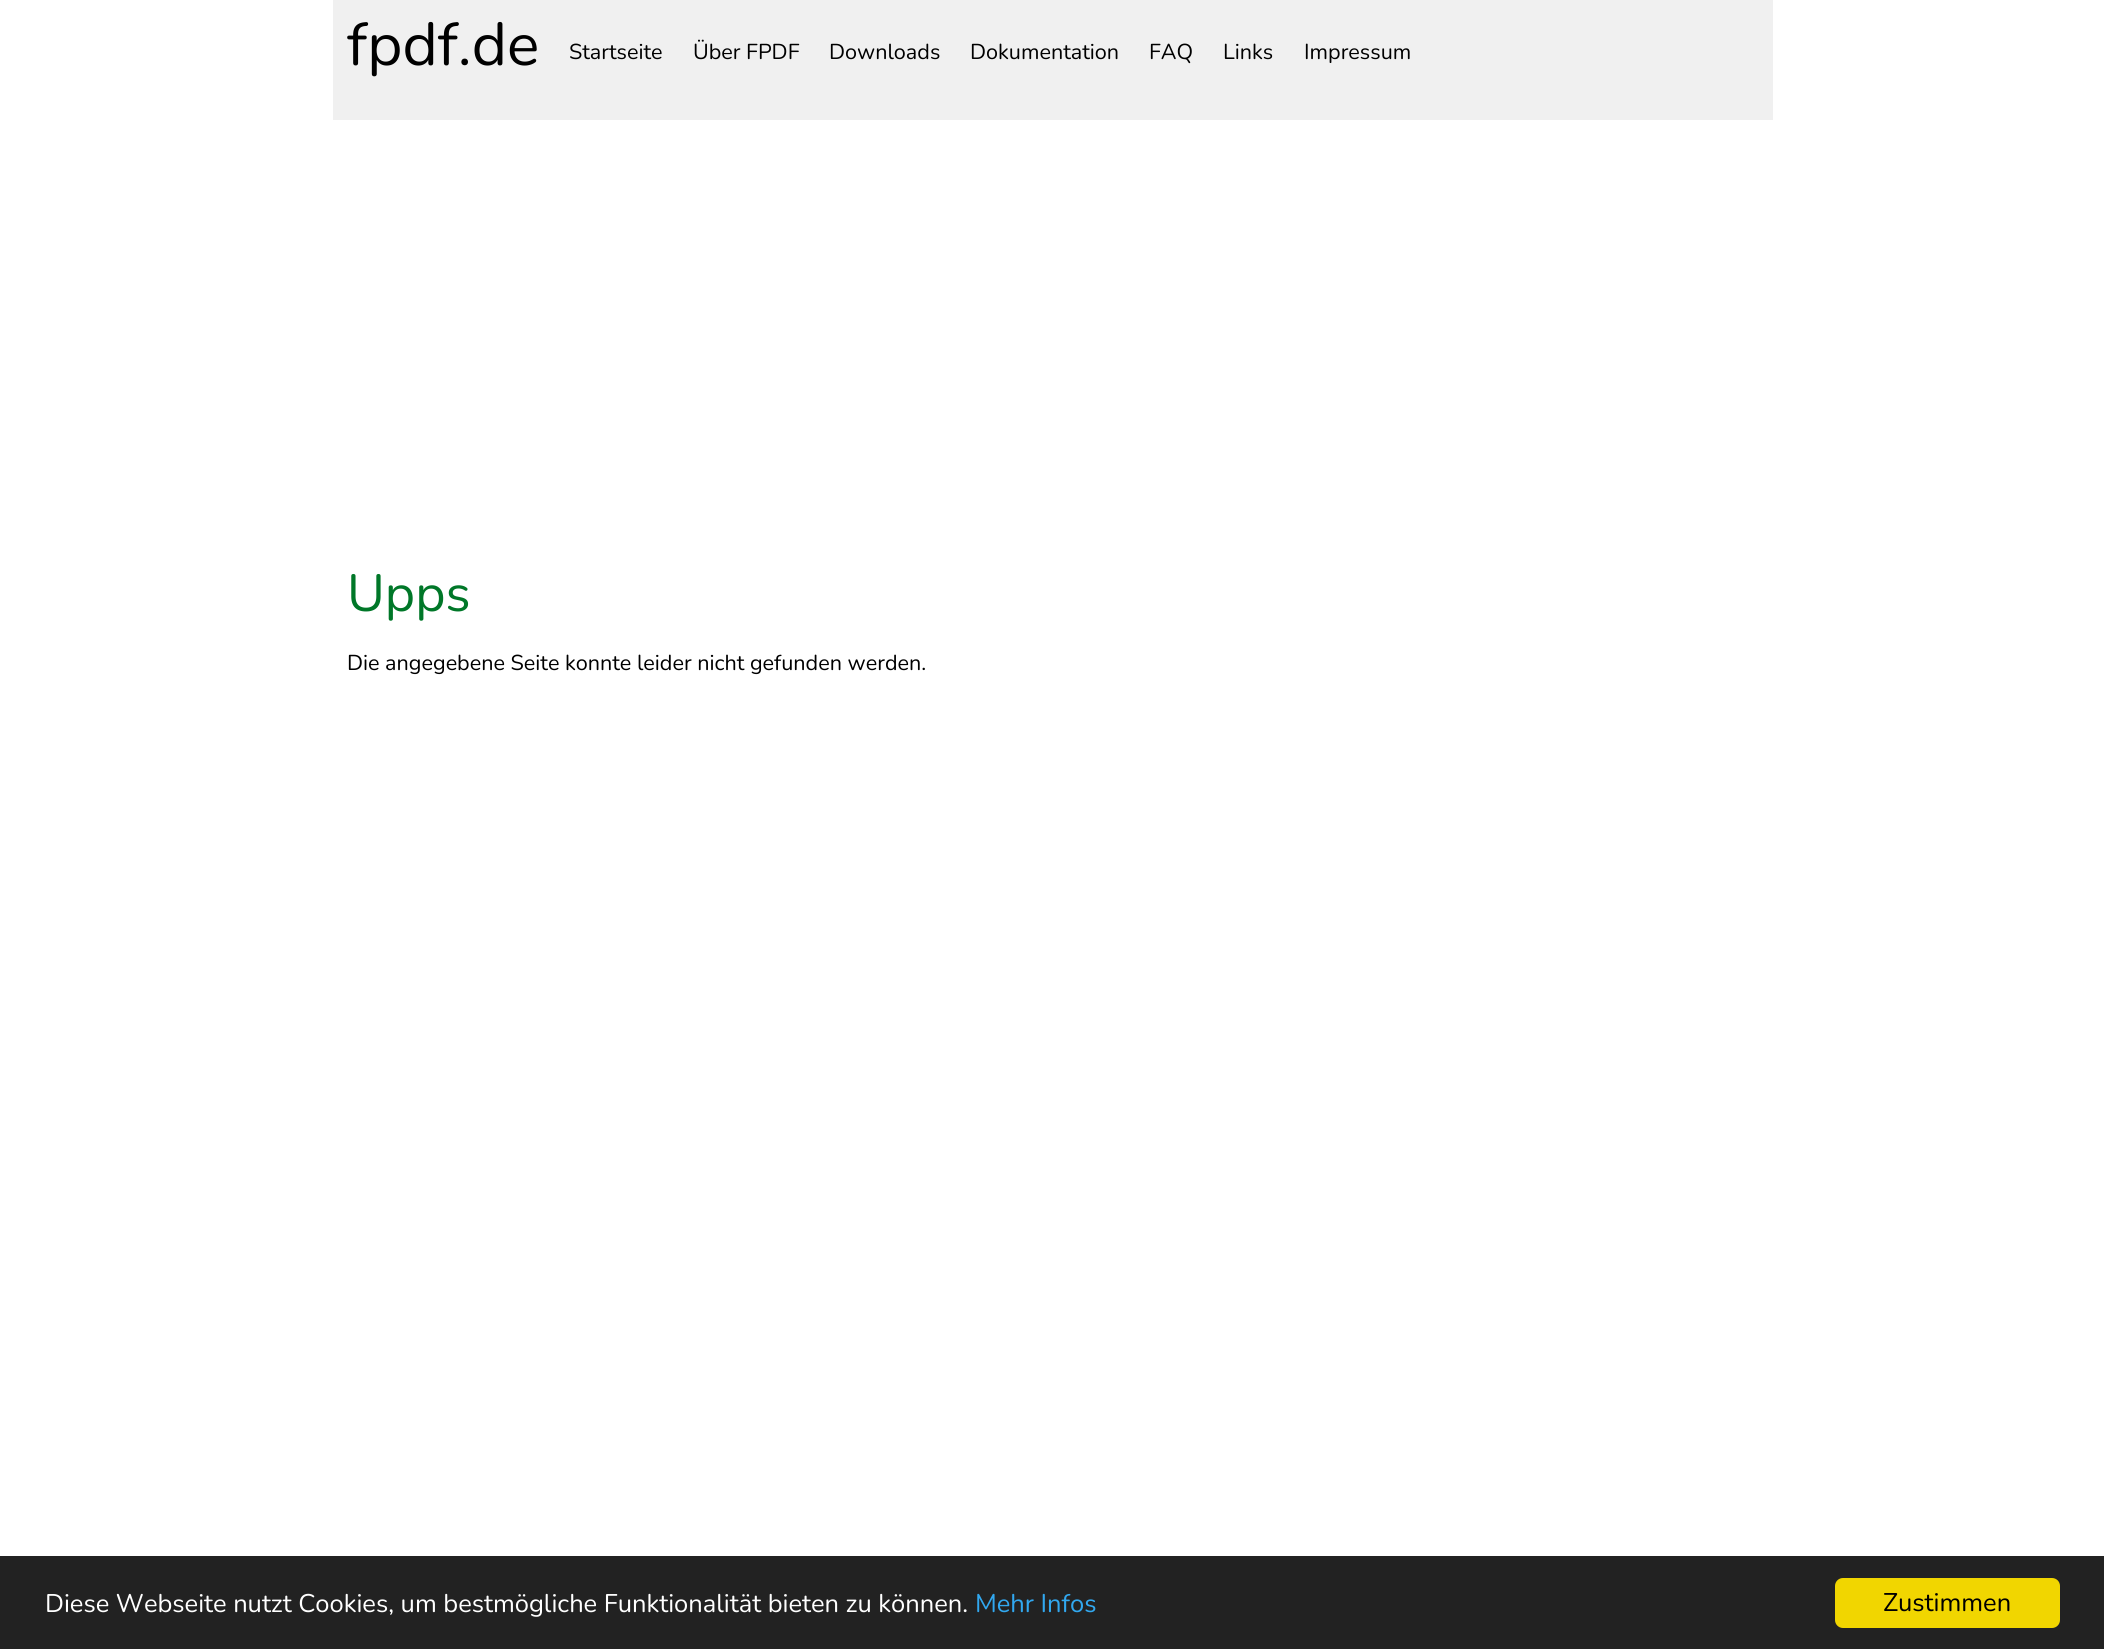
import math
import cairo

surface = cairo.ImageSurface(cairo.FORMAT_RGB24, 2104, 1649)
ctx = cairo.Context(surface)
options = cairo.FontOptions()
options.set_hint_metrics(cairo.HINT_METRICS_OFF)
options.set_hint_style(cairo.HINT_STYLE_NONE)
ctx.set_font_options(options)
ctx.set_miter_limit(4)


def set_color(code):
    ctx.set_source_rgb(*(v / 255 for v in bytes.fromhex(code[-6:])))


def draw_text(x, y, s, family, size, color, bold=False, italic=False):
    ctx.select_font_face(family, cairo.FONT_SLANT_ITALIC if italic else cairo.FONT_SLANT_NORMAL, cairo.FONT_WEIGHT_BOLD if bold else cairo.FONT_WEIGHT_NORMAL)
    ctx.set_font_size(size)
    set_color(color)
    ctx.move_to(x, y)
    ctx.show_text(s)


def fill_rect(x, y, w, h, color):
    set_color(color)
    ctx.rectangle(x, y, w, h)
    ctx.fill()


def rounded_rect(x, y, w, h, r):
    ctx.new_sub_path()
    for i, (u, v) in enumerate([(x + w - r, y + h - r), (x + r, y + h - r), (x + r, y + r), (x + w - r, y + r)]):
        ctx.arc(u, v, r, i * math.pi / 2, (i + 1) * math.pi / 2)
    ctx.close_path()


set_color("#ffffff")
ctx.paint()
fill_rect(333, 0, 1440, 120, "#f0f0f0")
draw_text(347, 65, "fpdf.de", "Nunito ExtraLight", 60.5, "#000000")
draw_text(569, 59, "Startseite", "Nunito ExtraLight", 21.6, "#000000")
draw_text(693, 59, "Über FPDF", "Nunito ExtraLight", 21.6, "#000000")
draw_text(829, 59, "Downloads", "Nunito ExtraLight", 21.6, "#000000")
draw_text(970, 59, "Dokumentation", "Nunito ExtraLight", 21.6, "#000000")
draw_text(1149, 59, "FAQ", "Nunito ExtraLight", 21.6, "#000000")
draw_text(1223, 59, "Links", "Nunito ExtraLight", 21.6, "#000000")
draw_text(1304, 59, "Impressum", "Nunito ExtraLight", 21.6, "#000000")
draw_text(347, 611, "Upps", "Nunito ExtraLight", 52, "#007728")
draw_text(347, 670, "Die angegebene Seite konnte leider nicht gefunden werden.", "Nunito ExtraLight", 21.6, "#000000")
fill_rect(0, 1556, 2104, 93, "#222222")
draw_text(45, 1612, "Diese Webseite nutzt Cookies, um bestmögliche Funktionalität bieten zu können.", "Nunito ExtraLight", 25.5, "#ffffff")
draw_text(975, 1612, "Mehr Infos", "Nunito ExtraLight", 25.5, "#31a8f0")
set_color("#f1d600")
rounded_rect(1835, 1578, 225, 50, 8)
ctx.fill()
draw_text(1883, 1611, "Zustimmen", "Nunito ExtraLight", 25.5, "#000000")
surface.write_to_png("output.png")
